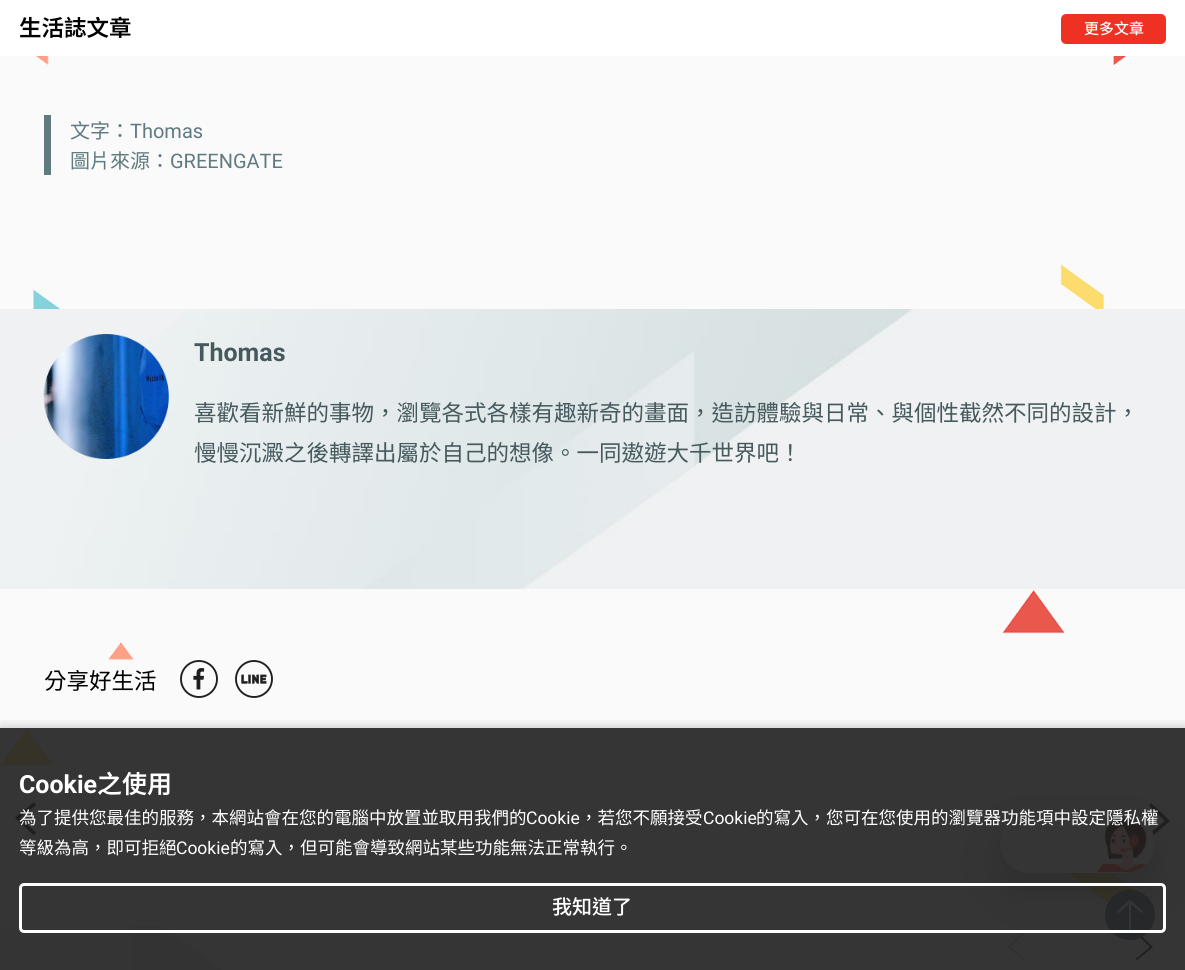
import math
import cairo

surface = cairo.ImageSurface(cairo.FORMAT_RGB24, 1185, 970)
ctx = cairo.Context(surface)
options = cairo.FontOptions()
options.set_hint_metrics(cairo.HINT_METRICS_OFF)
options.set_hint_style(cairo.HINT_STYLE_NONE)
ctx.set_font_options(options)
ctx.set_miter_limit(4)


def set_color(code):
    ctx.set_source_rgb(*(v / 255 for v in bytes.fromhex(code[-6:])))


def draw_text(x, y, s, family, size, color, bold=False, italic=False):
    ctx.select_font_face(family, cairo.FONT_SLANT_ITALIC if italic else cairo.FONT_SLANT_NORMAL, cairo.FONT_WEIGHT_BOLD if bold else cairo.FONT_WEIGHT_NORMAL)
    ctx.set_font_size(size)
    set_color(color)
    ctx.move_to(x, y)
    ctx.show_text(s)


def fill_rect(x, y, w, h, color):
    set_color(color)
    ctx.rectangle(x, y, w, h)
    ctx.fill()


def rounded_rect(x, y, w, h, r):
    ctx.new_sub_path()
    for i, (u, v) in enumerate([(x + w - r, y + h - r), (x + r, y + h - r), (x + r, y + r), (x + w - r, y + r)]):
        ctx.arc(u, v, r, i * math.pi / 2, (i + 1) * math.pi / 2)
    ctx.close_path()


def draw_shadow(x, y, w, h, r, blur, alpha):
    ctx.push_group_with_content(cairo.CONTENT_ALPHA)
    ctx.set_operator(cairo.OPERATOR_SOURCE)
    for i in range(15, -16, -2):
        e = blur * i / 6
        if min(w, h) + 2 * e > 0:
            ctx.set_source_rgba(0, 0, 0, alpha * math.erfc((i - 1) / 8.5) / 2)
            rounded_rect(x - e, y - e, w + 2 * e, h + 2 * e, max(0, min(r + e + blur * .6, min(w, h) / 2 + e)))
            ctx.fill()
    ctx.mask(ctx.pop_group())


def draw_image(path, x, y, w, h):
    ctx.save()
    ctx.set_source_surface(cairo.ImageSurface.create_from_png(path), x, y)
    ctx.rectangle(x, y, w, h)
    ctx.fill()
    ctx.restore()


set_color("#fafafa")
ctx.paint()
draw_image("assets/img1.png", 0, 56, 1138, 847)
fill_rect(0, 0, 1185, 56, "#ffffff")
draw_text(19, 36, "生活誌文章", "Noto Sans TC SemiBold", 22.5, "#000000")
set_color("#ef3123")
rounded_rect(1062.5, 15.5, 102, 27, 3.5)
ctx.fill_preserve()
ctx.set_line_width(3)
ctx.stroke()
draw_text(1084, 34, "更多文章", "Noto Sans TC Medium", 15, "#ffffff")
fill_rect(44, 115, 7, 60, "#5f7b80")
draw_text(70, 138, "文字：", "Noto Sans TC", 20, "#5f7b80")
draw_text(130, 138, "Thomas", "Roboto", 20, "#5f7b80")
draw_text(70, 168, "圖片來源：", "Noto Sans TC", 20, "#5f7b80")
draw_text(170, 168, "GREENGATE", "Roboto", 20, "#5f7b80")
draw_image("assets/img2.png", 0, 309, 1185, 280)
draw_image("assets/img3.png", 43, 334, 126, 125)
draw_text(194, 361, "Thomas", "Roboto", 25, "#465a5e", bold=True)
draw_text(194, 421, "喜歡看新鮮的事物，瀏覽各式各樣有趣新奇的畫面，造訪體驗與日常、與個性截然不同的設計，", "Noto Sans TC", 22.5, "#465a5e")
draw_text(194, 461, "慢慢沉澱之後轉譯出屬於自己的想像。一同遨遊大千世界吧！", "Noto Sans TC", 22.5, "#465a5e")
draw_text(44, 689, "分享好生活", "Noto Sans TC", 22.5, "#000000")
draw_image("assets/img4.png", 180, 660, 38, 38)
draw_image("assets/img5.png", 235, 660, 38, 38)
ctx.new_path()
ctx.move_to(35, 803.5)
ctx.line_to(17.5, 818)
ctx.line_to(35, 834)
set_color("#202020")
ctx.set_line_width(3.5)
ctx.stroke()
ctx.new_path()
ctx.move_to(1150, 835.5)
ctx.line_to(1167.5, 821)
ctx.line_to(1150, 804.5)
ctx.stroke()
gradient = cairo.LinearGradient(-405, 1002, 321, 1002)
gradient.add_color_stop_rgba(0, 1, 1, 1, 1)
gradient.add_color_stop_rgba(1, 0.918, 0.918, 0.918, 1)
ctx.set_source(gradient)
ctx.new_path()
ctx.move_to(-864, 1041)
ctx.line_to(321, 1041)
ctx.line_to(261, 926)
ctx.line_to(-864, 926)
ctx.close_path()
ctx.fill()
ctx.save()
ctx.rectangle(0, 921, 321, 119)
ctx.clip()
gradient = cairo.LinearGradient(-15, 670, 313, 902)
gradient.add_color_stop_rgba(0, 0.937, 0.937, 0.937, 1)
gradient.add_color_stop_rgba(1, 1, 1, 1, 1)
ctx.set_source(gradient)
ctx.new_path()
ctx.move_to(-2, 807)
ctx.line_to(321, 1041)
ctx.line_to(321, 892)
ctx.line_to(-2, 659)
ctx.close_path()
ctx.fill()
ctx.restore()
set_color("#d6d6d6")
ctx.new_path()
ctx.move_to(1023.5, 960.5)
ctx.line_to(1007, 947)
ctx.line_to(1023.5, 931.5)
ctx.line_to(1024.5, 933)
ctx.line_to(1010, 947)
ctx.line_to(1024.5, 959)
ctx.close_path()
ctx.fill()
set_color("#202020")
ctx.new_path()
ctx.move_to(1136.5, 960.5)
ctx.line_to(1135.5, 959)
ctx.line_to(1150, 947)
ctx.line_to(1135.5, 933)
ctx.line_to(1136.5, 931.5)
ctx.line_to(1153, 947)
ctx.close_path()
ctx.fill()
set_color("#6a798e")
ctx.arc(1130, 915, 25, 0, 2 * math.pi)
ctx.fill()
draw_image("assets/img7.png", 1116, 899, 28, 31)
set_color("#202020")
draw_shadow(1000, 833, 155, 57, 28.5, 17.5, 0.3)
set_color("#ffffff")
rounded_rect(1000, 815, 155, 58, 29)
ctx.fill()
draw_image("assets/img6.png", 1097, 817, 50, 56)
ctx.save()
ctx.rectangle(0, 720, 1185, 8)
ctx.clip()
set_color("#000000")
draw_shadow(1, 729, 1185, 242, 0, 6, 0.3)
ctx.restore()
ctx.set_source_rgba(0.125, 0.125, 0.125, 0.9)
ctx.rectangle(0, 728, 1185, 242)
ctx.fill()
draw_text(19, 793, "Cookie", "Roboto", 25, "#ffffff", bold=True)
draw_text(97, 793, "之使用", "Noto Sans TC SemiBold", 25, "#ffffff")
draw_text(19, 824, "為了提供您最佳的服務，本網站會在您的電腦中放置並取用我們的", "Noto Sans TC", 17.5, "#ffffff")
draw_text(526, 824, "Cookie", "Roboto", 17.5, "#ffffff")
draw_text(580, 824, "，若您不願接受", "Noto Sans TC", 17.5, "#ffffff")
draw_text(703, 824, "Cookie", "Roboto", 17.5, "#ffffff")
draw_text(756, 824, "的寫入，您可在您使用的瀏覽器功能項中設定隱私權", "Noto Sans TC", 17.5, "#ffffff")
draw_text(19, 854, "等級為高，即可拒絕", "Noto Sans TC", 17.5, "#ffffff")
draw_text(176, 854, "Cookie", "Roboto", 17.5, "#ffffff")
draw_text(230, 854, "的寫入，但可能會導致網站某些功能無法正常執行。", "Noto Sans TC", 17.5, "#ffffff")
rounded_rect(20.5, 884.5, 1144, 47, 3.5)
ctx.set_line_width(3)
ctx.stroke()
draw_text(552, 914, "我知道了", "Noto Sans TC Medium", 20, "#ffffff")
surface.write_to_png("output.png")
